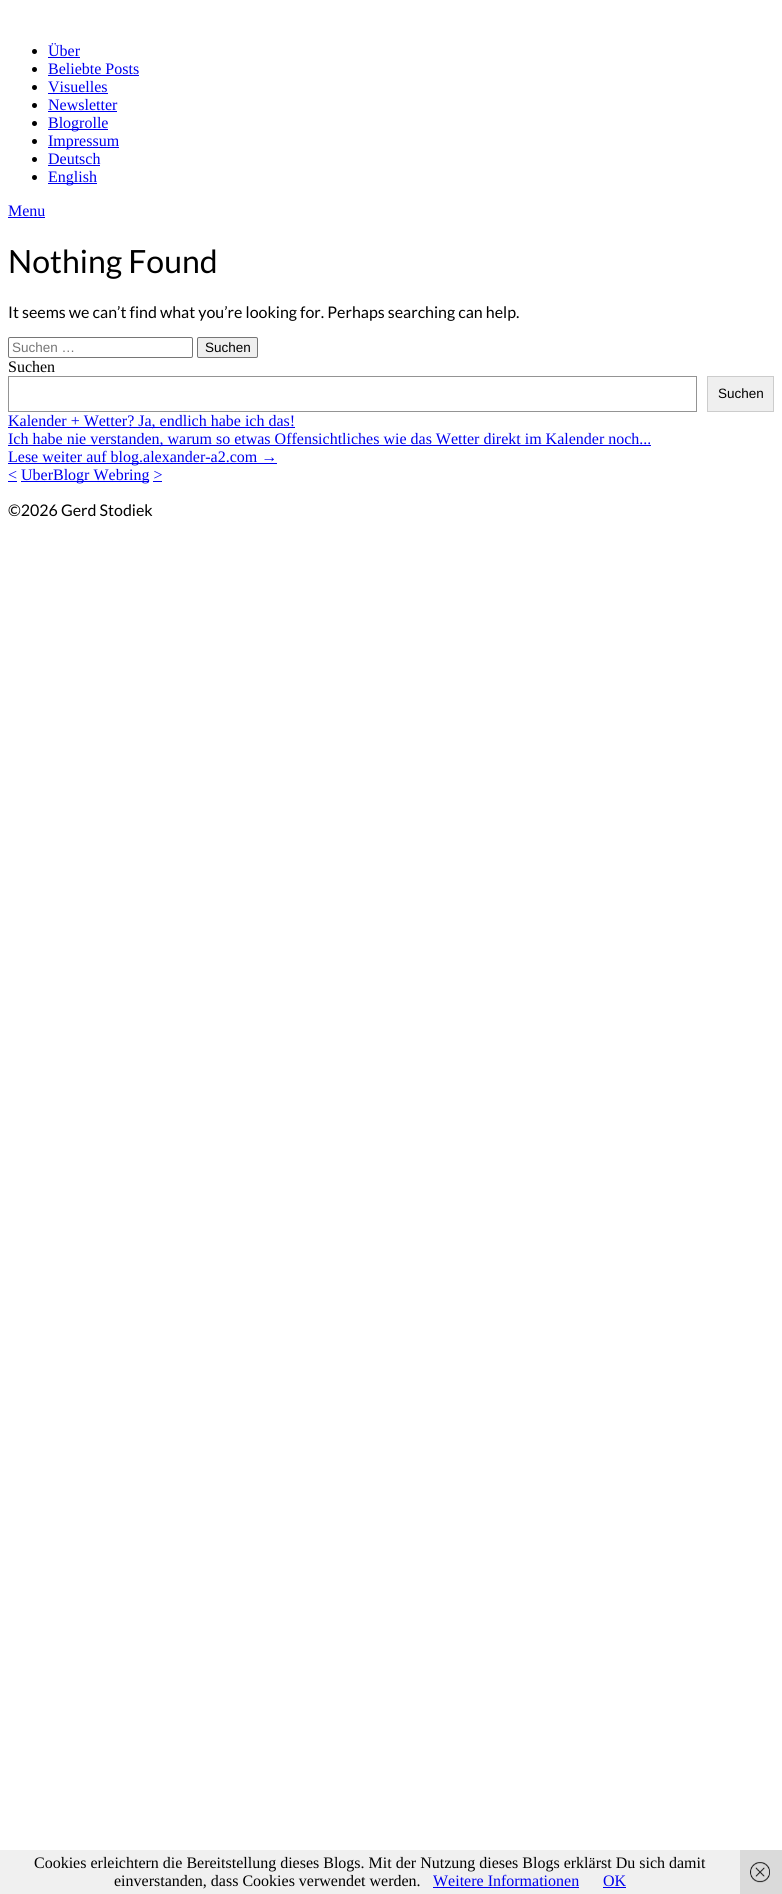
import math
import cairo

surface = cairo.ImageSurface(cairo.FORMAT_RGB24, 782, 1894)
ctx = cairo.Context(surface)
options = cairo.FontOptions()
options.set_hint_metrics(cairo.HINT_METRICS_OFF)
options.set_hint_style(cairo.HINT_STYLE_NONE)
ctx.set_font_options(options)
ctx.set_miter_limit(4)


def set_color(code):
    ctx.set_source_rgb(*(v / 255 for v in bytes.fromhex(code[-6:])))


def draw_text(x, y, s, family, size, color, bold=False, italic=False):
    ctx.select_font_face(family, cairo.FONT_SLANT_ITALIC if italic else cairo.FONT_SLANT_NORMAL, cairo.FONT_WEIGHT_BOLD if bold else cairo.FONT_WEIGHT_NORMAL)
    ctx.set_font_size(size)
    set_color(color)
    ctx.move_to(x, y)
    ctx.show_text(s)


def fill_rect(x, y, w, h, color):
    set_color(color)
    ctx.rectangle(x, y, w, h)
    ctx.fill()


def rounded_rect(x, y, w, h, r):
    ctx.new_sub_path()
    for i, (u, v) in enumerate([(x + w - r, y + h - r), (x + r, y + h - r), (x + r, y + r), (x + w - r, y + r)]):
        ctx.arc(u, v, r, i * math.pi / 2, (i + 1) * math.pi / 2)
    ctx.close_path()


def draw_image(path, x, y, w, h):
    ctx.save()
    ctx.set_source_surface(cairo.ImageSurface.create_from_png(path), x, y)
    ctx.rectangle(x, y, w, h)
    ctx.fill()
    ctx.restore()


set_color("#ffffff")
ctx.paint()
set_color("#000000")
ctx.arc(34.5, 51.5, 2.5, 0, 2 * math.pi)
ctx.fill()
draw_text(48, 56, "Über", "Liberation Serif", 16, "#0000ee")
fill_rect(48, 57, 32, 1, "#0000ee")
set_color("#000000")
ctx.new_path()
ctx.arc(34.5, 69.5, 2.5, 0, 2 * math.pi)
ctx.fill()
draw_text(48, 74, "Beliebte Posts", "Liberation Serif", 16, "#0000ee")
fill_rect(48, 75, 91, 1, "#0000ee")
set_color("#000000")
ctx.new_path()
ctx.arc(34.5, 87.5, 2.5, 0, 2 * math.pi)
ctx.fill()
draw_text(48, 92, "Visuelles", "Liberation Serif", 16, "#0000ee")
fill_rect(48, 93, 60, 1, "#0000ee")
set_color("#000000")
ctx.new_path()
ctx.arc(34.5, 105.5, 2.5, 0, 2 * math.pi)
ctx.fill()
draw_text(48, 110, "Newsletter", "Liberation Serif", 16, "#0000ee")
fill_rect(48, 111, 69, 1, "#0000ee")
set_color("#000000")
ctx.new_path()
ctx.arc(34.5, 123.5, 2.5, 0, 2 * math.pi)
ctx.fill()
fill_rect(48, 129, 60, 1, "#0000ee")
draw_text(48, 128, "Blogrolle", "Liberation Serif", 16, "#0000ee")
set_color("#000000")
ctx.new_path()
ctx.arc(34.5, 141.5, 2.5, 0, 2 * math.pi)
ctx.fill()
fill_rect(48, 147, 71, 1, "#0000ee")
draw_text(48, 146, "Impressum", "Liberation Serif", 16, "#0000ee")
set_color("#000000")
ctx.new_path()
ctx.arc(34.5, 159.5, 2.5, 0, 2 * math.pi)
ctx.fill()
draw_text(48, 164, "Deutsch", "Liberation Serif", 16, "#0000ee")
fill_rect(48, 165, 52, 1, "#0000ee")
set_color("#000000")
ctx.new_path()
ctx.arc(34.5, 177.5, 2.5, 0, 2 * math.pi)
ctx.fill()
fill_rect(48, 183, 49, 1, "#0000ee")
draw_text(48, 182, "English", "Liberation Serif", 16, "#0000ee")
draw_text(8, 216, "Menu", "Liberation Serif", 16, "#0000ee")
fill_rect(8, 217, 37, 1, "#0000ee")
draw_text(8, 273, "Nothing Found", "Lato", 32, "#000000")
draw_text(8, 318, "It seems we can’t find what you’re looking for. Perhaps searching can help.", "Lato", 16, "#000000")
rounded_rect(8.5, 337.5, 184, 20, 1.5)
set_color("#767676")
ctx.set_line_width(1)
ctx.stroke()
draw_text(12, 352, "Suchen …", "Liberation Sans", 13.5, "#757575")
set_color("#efefef")
rounded_rect(197.5, 337.5, 60, 20, 1.5)
ctx.fill_preserve()
set_color("#767676")
ctx.stroke()
draw_text(205, 352, "Suchen", "Liberation Sans", 13.5, "#000000")
draw_text(8, 372, "Suchen", "Liberation Serif", 16, "#000000")
ctx.rectangle(8.5, 376.5, 688, 35)
set_color("#949494")
ctx.stroke()
set_color("#efefef")
ctx.rectangle(707.5, 376.5, 66, 35)
ctx.fill_preserve()
set_color("#cccccc")
ctx.stroke()
draw_text(718, 398, "Suchen", "Liberation Sans", 13.5, "#000000")
fill_rect(8, 427, 287, 1, "#0000ee")
draw_text(8, 426, "Kalender + Wetter? Ja, endlich habe ich das!", "Liberation Serif", 16, "#0000ee")
fill_rect(8, 445, 643, 1, "#0000ee")
draw_text(8, 444, "Ich habe nie verstanden, warum so etwas Offensichtliches wie das Wetter direkt im Kalender noch...", "Liberation Serif", 16, "#0000ee")
fill_rect(8, 463, 269, 1, "#0000ee")
draw_text(8, 462, "Lese weiter auf blog.alexander-a2.com →", "Liberation Serif", 16, "#0000ee")
draw_text(8, 480, "<", "Liberation Serif", 16, "#0000ee")
fill_rect(8, 481, 9, 1, "#0000ee")
fill_rect(21, 481, 128, 1, "#0000ee")
draw_text(21, 480, "UberBlogr Webring >", "Liberation Serif", 16, "#0000ee")
fill_rect(153, 481, 9, 1, "#0000ee")
draw_text(8, 516, "©2026 Gerd Stodiek", "Lato", 16, "#000000")
fill_rect(0, 1850, 740, 44, "#f0f0f0")
draw_text(34, 1868, "Cookies erleichtern die Bereitstellung dieses Blogs. Mit der Nutzung dieses Blogs erklärst Du sich damit", "Liberation Serif", 16, "#000000")
draw_text(114, 1886, "einverstanden, dass Cookies verwendet werden.", "Liberation Serif", 16, "#000000")
draw_text(433, 1886, "Weitere Informationen", "Liberation Serif", 16, "#0000ee")
fill_rect(433, 1887, 146, 1, "#0000ee")
draw_text(603, 1886, "OK", "Liberation Serif", 16, "#0000ee")
fill_rect(603, 1887, 23, 1, "#0000ee")
fill_rect(740, 1850, 42, 44, "#dadada")
draw_image("assets/img1.png", 750, 1862, 20, 21)
surface.write_to_png("output.png")
